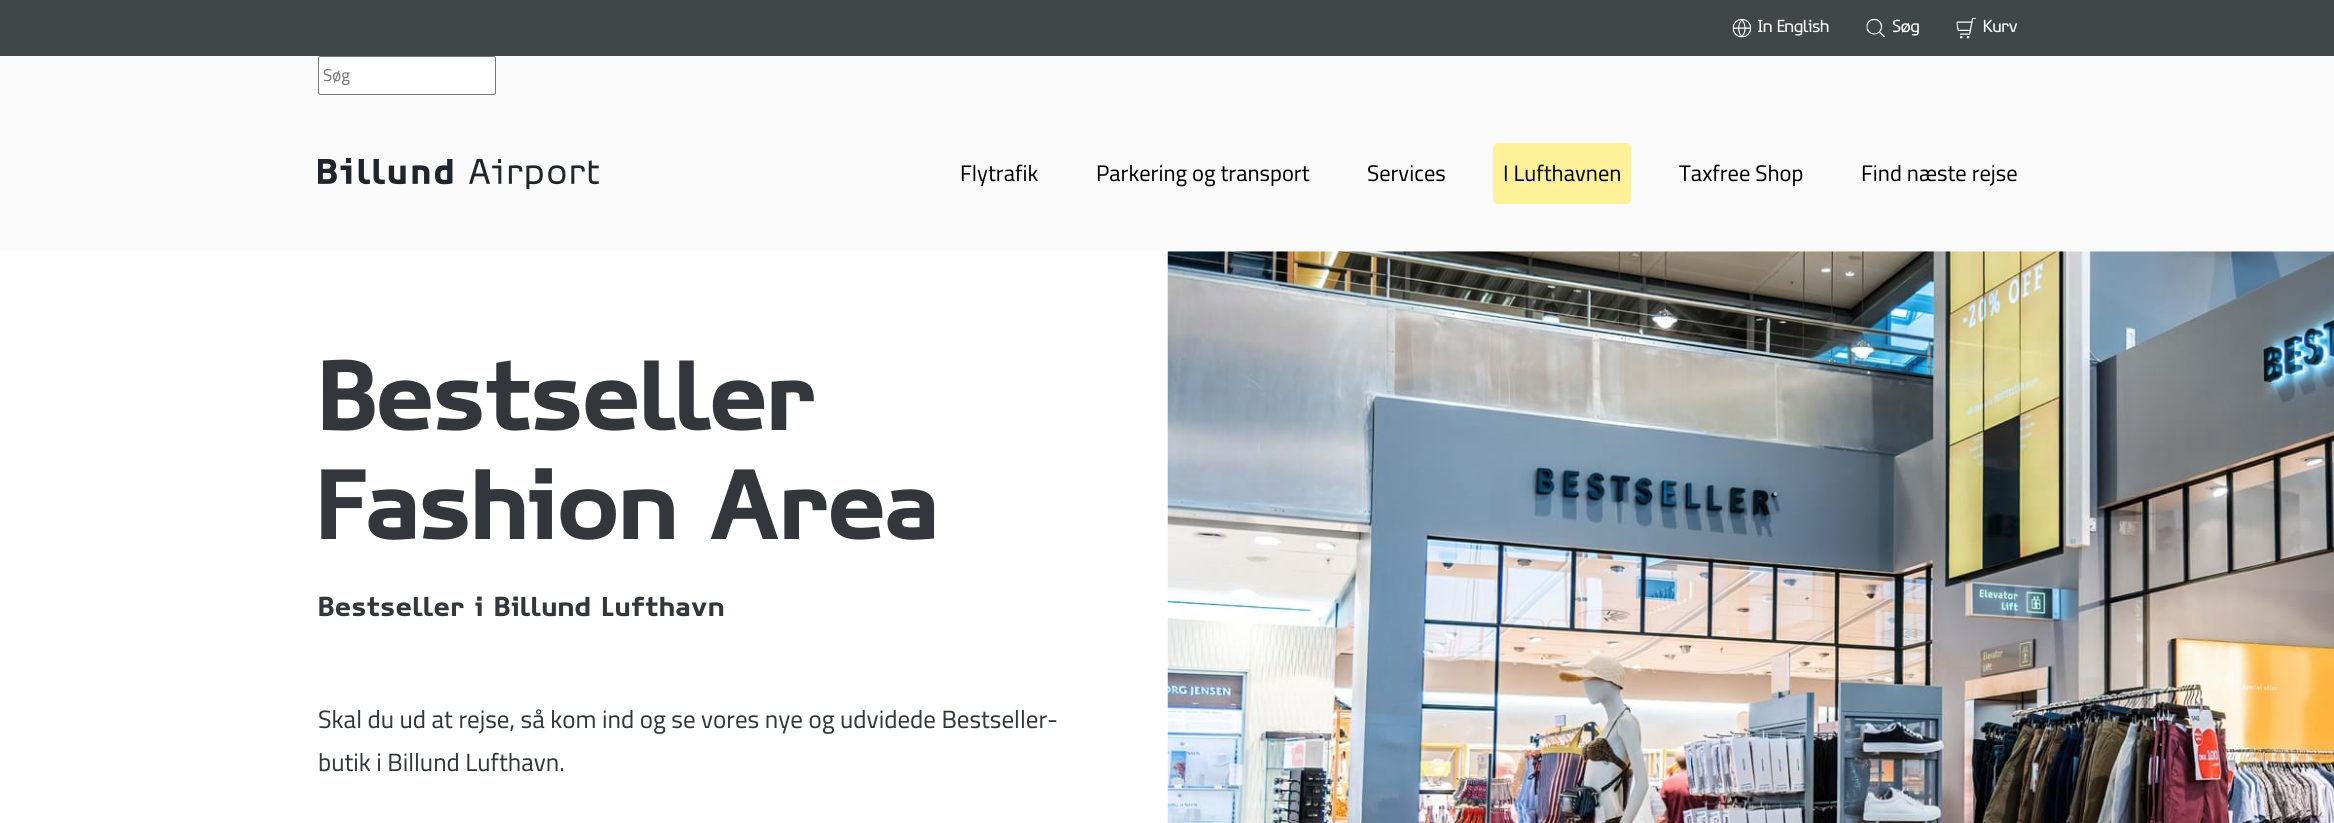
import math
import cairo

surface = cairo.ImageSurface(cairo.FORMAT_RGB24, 2334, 823)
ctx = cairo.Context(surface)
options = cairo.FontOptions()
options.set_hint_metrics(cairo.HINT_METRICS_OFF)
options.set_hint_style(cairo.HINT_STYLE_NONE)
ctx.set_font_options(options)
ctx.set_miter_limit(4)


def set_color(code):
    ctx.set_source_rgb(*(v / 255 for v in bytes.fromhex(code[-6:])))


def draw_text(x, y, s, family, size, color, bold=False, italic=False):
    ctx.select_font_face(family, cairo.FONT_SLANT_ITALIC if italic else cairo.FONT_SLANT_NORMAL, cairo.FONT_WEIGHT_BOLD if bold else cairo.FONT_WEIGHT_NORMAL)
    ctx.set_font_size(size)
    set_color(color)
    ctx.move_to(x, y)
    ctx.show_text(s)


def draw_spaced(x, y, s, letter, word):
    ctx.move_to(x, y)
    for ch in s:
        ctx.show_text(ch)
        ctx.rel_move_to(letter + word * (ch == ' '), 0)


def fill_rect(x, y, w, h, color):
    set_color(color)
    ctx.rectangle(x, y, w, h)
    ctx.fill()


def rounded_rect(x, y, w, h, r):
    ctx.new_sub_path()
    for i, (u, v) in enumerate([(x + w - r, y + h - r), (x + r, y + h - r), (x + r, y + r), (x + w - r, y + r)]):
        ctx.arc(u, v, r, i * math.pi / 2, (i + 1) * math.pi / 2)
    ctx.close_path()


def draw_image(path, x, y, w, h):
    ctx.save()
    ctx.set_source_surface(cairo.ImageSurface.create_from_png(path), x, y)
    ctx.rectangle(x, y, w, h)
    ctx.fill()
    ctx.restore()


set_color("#fafafa")
ctx.paint()
fill_rect(0, 0, 2334, 56, "#414747")
draw_image("assets/img1.png", 1732, 19, 19, 19)
draw_text(1757, 32, "In English", "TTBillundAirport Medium", 17.5, "#ffffff")
draw_image("assets/img2.png", 1866, 19, 19, 19)
draw_text(1892, 32, "Søg", "TTBillundAirport Medium", 17.5, "#ffffff")
draw_image("assets/img3.png", 1956, 17, 20, 22)
draw_text(1983, 32, "Kurv", "TTBillundAirport Medium", 17.5, "#ffffff")
rounded_rect(318.5, 56.5, 177, 38, 2)
ctx.fill_preserve()
set_color("#767676")
ctx.set_line_width(1)
ctx.stroke()
draw_text(323, 81, "Søg", "Cairo", 17, "#757575")
draw_image("assets/img4.png", 318, 158, 281, 31)
draw_text(960, 181, "Flytrafik", "Cairo", 22.5, "#000000")
draw_text(1096, 181, "Parkering og transport", "Cairo", 22.5, "#000000")
draw_text(1367, 181, "Services", "Cairo", 22.5, "#000000")
set_color("#fff19a")
rounded_rect(1493, 143, 138, 61, 5)
ctx.fill()
draw_text(1503, 181, "I Lufthavnen", "Cairo", 22.5, "#000000")
draw_text(1679, 181, "Taxfree Shop", "Cairo", 22.5, "#000000")
draw_text(1861, 181, "Find næste rejse", "Cairo", 22.5, "#000000")
fill_rect(0, 251, 2334, 572, "#ffffff")
ctx.select_font_face("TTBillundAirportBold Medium")
ctx.set_font_size(100)
set_color("#33363b")
draw_spaced(318, 430, "Bestseller", 1.4, 0)
draw_spaced(318, 539, "Fashion Area", 1.4, 0)
ctx.set_font_size(27.5)
draw_spaced(318, 616, "Bestseller i Billund Lufthavn", 1.4, 0)
draw_text(318, 728, "Skal du ud at rejse, så kom ind og se vores nye og udvidede Bestseller-", "Cairo", 25, "#33363b")
draw_text(318, 771, "butik i Billund Lufthavn.", "Cairo", 25, "#33363b")
draw_image("assets/img5.png", 1167, 251, 1167, 572)
surface.write_to_png("output.png")
